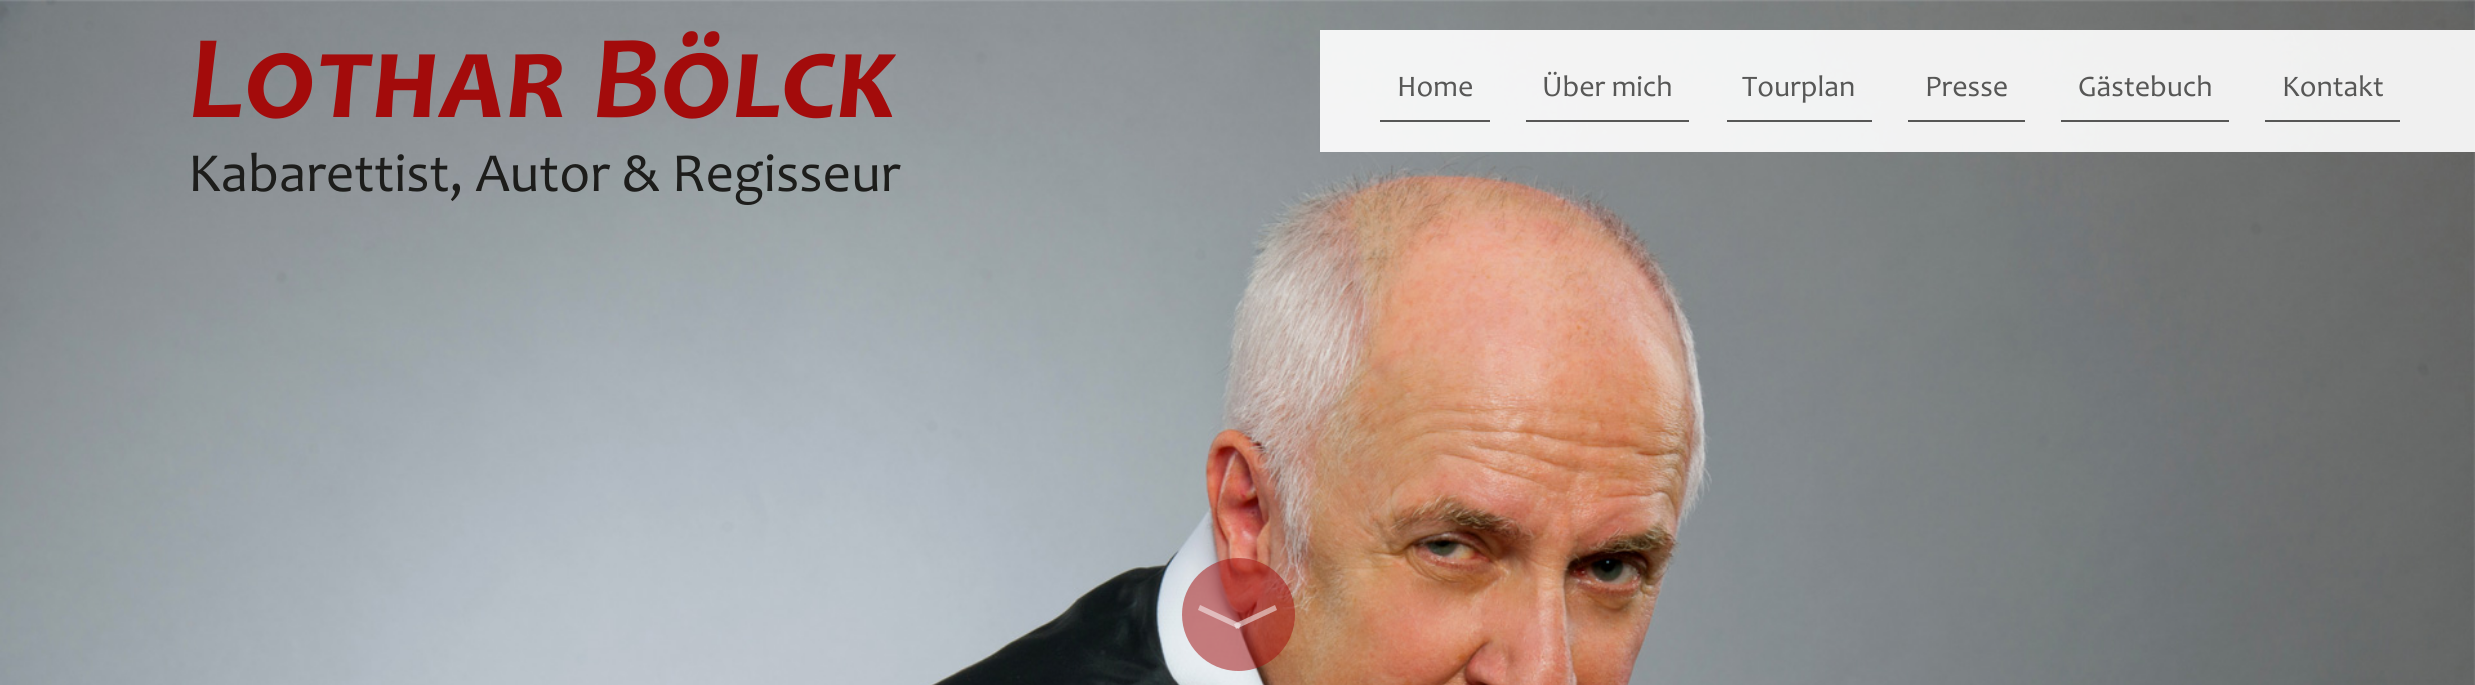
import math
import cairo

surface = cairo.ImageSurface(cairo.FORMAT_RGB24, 2475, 685)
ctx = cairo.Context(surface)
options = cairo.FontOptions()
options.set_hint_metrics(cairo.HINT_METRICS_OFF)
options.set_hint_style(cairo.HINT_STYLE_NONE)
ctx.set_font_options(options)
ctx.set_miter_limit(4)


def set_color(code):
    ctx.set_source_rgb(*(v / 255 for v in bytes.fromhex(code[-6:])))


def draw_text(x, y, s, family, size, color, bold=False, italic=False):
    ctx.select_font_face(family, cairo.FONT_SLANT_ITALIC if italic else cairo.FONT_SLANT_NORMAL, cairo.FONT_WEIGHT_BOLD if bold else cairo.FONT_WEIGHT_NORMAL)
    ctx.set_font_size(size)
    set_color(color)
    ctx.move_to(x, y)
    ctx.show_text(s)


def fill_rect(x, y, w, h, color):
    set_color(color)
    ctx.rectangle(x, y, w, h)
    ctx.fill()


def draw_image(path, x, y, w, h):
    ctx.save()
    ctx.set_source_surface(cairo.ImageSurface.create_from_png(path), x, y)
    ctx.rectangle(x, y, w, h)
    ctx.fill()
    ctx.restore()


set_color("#ffffff")
ctx.paint()
draw_image("assets/img1.png", 0, 0, 2475, 685)
draw_text(188, 117, "Lothar Bölck", "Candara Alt", 120, "#a30b0b", bold=True, italic=True)
draw_text(188, 191, "Kabarettist, Autor & Regisseur", "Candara", 55.5, "#1d1d1b")
ctx.set_source_rgba(1, 1, 1, 0.9)
ctx.rectangle(1320, 30, 1155, 122)
ctx.fill()
fill_rect(1380, 120, 110, 2, "#575756")
draw_text(1397, 96, "Home", "Candara", 30, "#575756")
fill_rect(1526, 120, 163, 2, "#575756")
draw_text(1542, 96, "Über mich", "Candara", 30, "#575756")
fill_rect(1727, 120, 145, 2, "#575756")
draw_text(1742, 96, "Tourplan", "Candara", 30, "#575756")
fill_rect(1908, 120, 117, 2, "#575756")
draw_text(1925, 96, "Presse", "Candara", 30, "#575756")
fill_rect(2061, 120, 168, 2, "#575756")
draw_text(2078, 96, "Gästebuch", "Candara", 30, "#575756")
fill_rect(2265, 120, 135, 2, "#575756")
draw_text(2282, 96, "Kontakt", "Candara", 30, "#575756")
ctx.set_source_rgba(0.639, 0.043, 0.043, 0.5)
ctx.new_path()
ctx.arc(1238.5, 614.5, 56.5, 0, 2 * math.pi)
ctx.fill()
ctx.set_source_rgba(1, 1, 1, 0.5)
ctx.new_path()
ctx.move_to(1200, 605)
ctx.line_to(1241, 624)
ctx.line_to(1239, 629)
ctx.line_to(1198, 610)
ctx.close_path()
ctx.fill()
ctx.new_path()
ctx.move_to(1234, 624)
ctx.line_to(1275, 605)
ctx.line_to(1277, 610)
ctx.line_to(1236, 629)
ctx.close_path()
ctx.fill()
surface.write_to_png("output.png")
